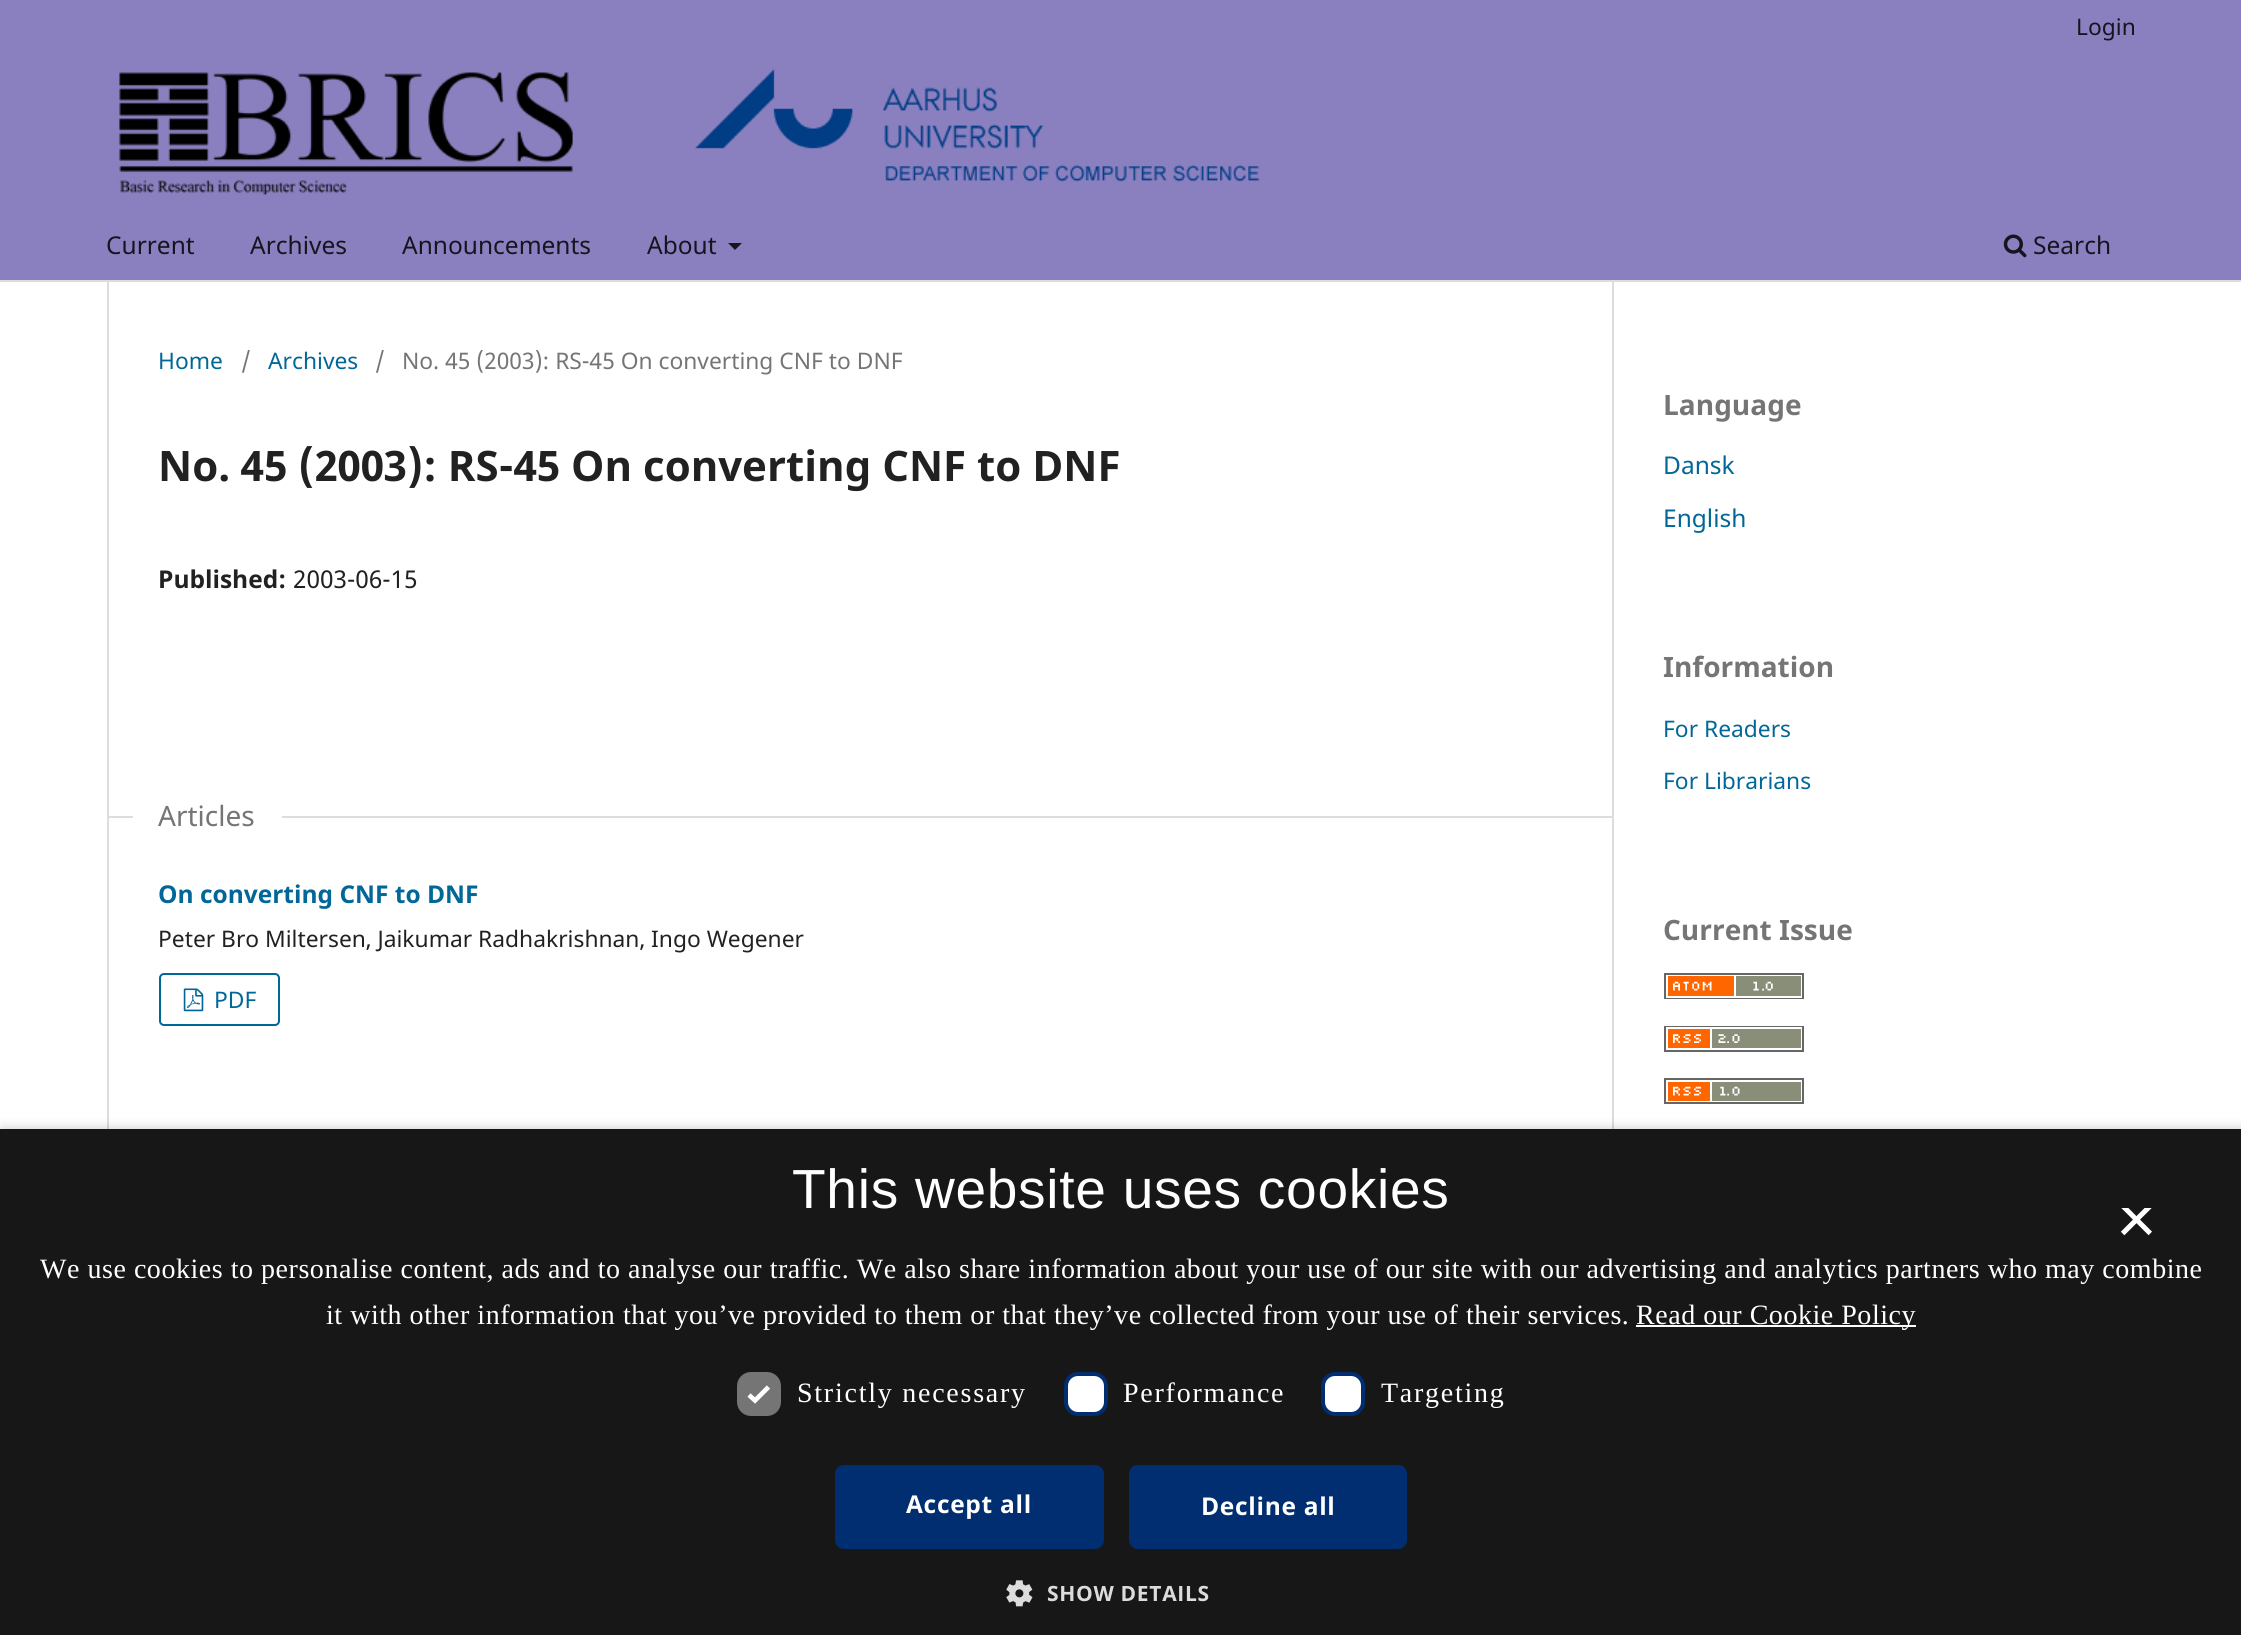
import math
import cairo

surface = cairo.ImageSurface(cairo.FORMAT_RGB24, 2241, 1635)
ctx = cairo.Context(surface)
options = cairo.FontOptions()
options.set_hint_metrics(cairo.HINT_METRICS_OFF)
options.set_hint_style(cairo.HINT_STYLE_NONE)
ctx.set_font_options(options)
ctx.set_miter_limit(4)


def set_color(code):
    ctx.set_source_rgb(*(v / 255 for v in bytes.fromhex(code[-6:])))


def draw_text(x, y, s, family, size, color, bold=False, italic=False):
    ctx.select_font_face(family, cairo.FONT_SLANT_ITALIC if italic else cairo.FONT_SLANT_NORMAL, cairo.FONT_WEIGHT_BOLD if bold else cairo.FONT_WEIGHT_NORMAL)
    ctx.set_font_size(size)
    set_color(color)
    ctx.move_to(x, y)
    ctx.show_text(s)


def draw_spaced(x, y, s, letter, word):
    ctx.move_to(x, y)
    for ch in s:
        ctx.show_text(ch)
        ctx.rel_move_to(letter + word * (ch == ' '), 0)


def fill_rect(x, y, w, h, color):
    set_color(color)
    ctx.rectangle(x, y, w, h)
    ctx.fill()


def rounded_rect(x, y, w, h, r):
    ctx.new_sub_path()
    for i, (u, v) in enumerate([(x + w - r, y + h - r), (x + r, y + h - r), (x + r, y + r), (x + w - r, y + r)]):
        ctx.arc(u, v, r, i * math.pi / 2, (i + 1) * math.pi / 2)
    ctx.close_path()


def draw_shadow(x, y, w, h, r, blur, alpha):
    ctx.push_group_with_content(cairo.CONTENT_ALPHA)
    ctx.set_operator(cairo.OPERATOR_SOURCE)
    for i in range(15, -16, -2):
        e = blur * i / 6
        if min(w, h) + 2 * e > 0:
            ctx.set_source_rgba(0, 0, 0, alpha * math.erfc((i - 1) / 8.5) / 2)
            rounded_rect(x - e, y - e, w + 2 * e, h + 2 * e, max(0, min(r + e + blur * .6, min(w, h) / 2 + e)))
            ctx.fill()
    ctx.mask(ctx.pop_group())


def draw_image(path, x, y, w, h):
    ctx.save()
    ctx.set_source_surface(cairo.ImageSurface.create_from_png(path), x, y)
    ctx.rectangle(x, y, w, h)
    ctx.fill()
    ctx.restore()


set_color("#ffffff")
ctx.paint()
fill_rect(0, 0, 2241, 280, "#8b80bf")
fill_rect(0, 280, 2241, 2, "#dddddd")
draw_text(2076, 35, "Login", "Noto Sans", 22.8, "#16141f")
draw_text(106, 254, "Current", "Noto Sans", 24.5, "#16141f")
draw_text(250, 254, "Archives", "Noto Sans", 24.5, "#16141f")
draw_text(402, 254, "Announcements", "Noto Sans", 24.5, "#16141f")
draw_text(647, 254, "About", "Noto Sans", 24.5, "#16141f")
ctx.new_path()
ctx.move_to(728, 243)
ctx.line_to(742, 243)
ctx.line_to(735, 250)
ctx.close_path()
ctx.fill()
draw_image("assets/img1.png", 2003, 234, 24, 24)
draw_text(2033, 254, "Search", "Noto Sans", 24.5, "#16141f")
draw_image("assets/img2.png", 119, 69, 1141, 126)
fill_rect(107, 282, 2, 847, "#dddddd")
draw_text(158, 369, "Home", "Noto Sans", 22.8, "#006798")
draw_text(241, 369, "/", "Noto Sans", 22.8, "#757575")
draw_text(268, 369, "Archives", "Noto Sans", 22.8, "#006798")
draw_text(375, 369, "/", "Noto Sans", 22.8, "#757575")
draw_text(402, 369, "No. 45 (2003): RS-45 On converting CNF to DNF", "Noto Sans", 22.8, "#757575")
draw_text(158, 481, "No. 45 (2003): RS-45 On converting CNF to DNF", "Noto Sans", 42, "#212121", bold=True)
draw_text(158, 588, "Published:", "Noto Sans", 24.5, "#212121", bold=True)
draw_text(293, 588, "2003-06-15", "Noto Sans", 24.5, "#212121")
fill_rect(107, 816, 1505, 2, "#dddddd")
fill_rect(133, 816, 149, 2, "#ffffff")
draw_text(158, 826, "Articles", "Noto Sans", 28, "#757575")
draw_text(158, 903, "On converting CNF to DNF", "Noto Sans", 24.5, "#006798", bold=True)
draw_text(158, 947, "Peter Bro Miltersen, Jaikumar Radhakrishnan, Ingo Wegener", "Noto Sans", 22.8, "#212121")
rounded_rect(160, 974, 119, 51, 4)
set_color("#006798")
ctx.stroke()
draw_image("assets/img3.png", 183, 988, 21, 24)
draw_text(214, 1008, "PDF", "Noto Sans", 22.8, "#006798")
fill_rect(1612, 282, 2, 847, "#dddddd")
draw_text(1663, 415, "Language", "Noto Sans", 28, "#757575", bold=True)
draw_text(1663, 474, "Dansk", "Noto Sans", 24.5, "#006798")
draw_text(1663, 527, "English", "Noto Sans", 24.5, "#006798")
draw_text(1663, 677, "Information", "Noto Sans", 28, "#757575", bold=True)
draw_text(1663, 737, "For Readers", "Noto Sans", 22.8, "#006798")
draw_text(1663, 789, "For Librarians", "Noto Sans", 22.8, "#006798")
draw_text(1663, 940, "Current Issue", "Noto Sans", 28, "#757575", bold=True)
draw_image("assets/img4.png", 1664, 973, 140, 26)
draw_image("assets/img5.png", 1664, 1026, 140, 26)
draw_image("assets/img6.png", 1664, 1078, 140, 26)
set_color("#000000")
draw_shadow(2, 1132, 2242, 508, 0, 7, 0.35)
fill_rect(0, 1129, 2241, 506, "#171717")
ctx.select_font_face("Liberation Sans")
ctx.set_font_size(55.1)
set_color("#ffffff")
draw_spaced(792, 1208, "This website uses cookies", 0.7, 0)
ctx.save()
ctx.rectangle(2111, 1208, 52, 52)
ctx.clip()
draw_text(2116, 1243, "×", "Liberation Sans", 70, "#ffffff")
ctx.restore()
ctx.select_font_face("Liberation Serif")
ctx.set_font_size(28)
draw_spaced(40, 1278, "We use cookies to personalise content, ads and to analyse our traffic. We also share information about your use of our site with our advertising and analytics partners who may combine", 0.53, 0)
draw_spaced(326, 1324, "it with other information that you’ve provided to them or that they’ve collected from your use of their services.", 0.53, 0)
fill_rect(1636, 1325, 280, 2, "#ffffff")
draw_spaced(1636, 1324, "Read our Cookie Policy", 0.53, 0)
set_color("#757575")
rounded_rect(737, 1372, 44, 44, 14)
ctx.fill()
ctx.new_path()
ctx.move_to(749, 1395)
ctx.line_to(755, 1400.5)
ctx.line_to(768.5, 1387)
set_color("#ffffff")
ctx.set_line_width(4.6)
ctx.stroke()
draw_spaced(797, 1402, "Strictly necessary", 1.75, 0)
rounded_rect(1066, 1374, 40, 40, 12)
ctx.fill_preserve()
set_color("#002e70")
ctx.set_line_width(4)
ctx.stroke()
set_color("#ffffff")
draw_spaced(1123, 1402, "Performance", 1.75, 0)
rounded_rect(1323, 1374, 40, 40, 12)
ctx.fill_preserve()
set_color("#002e70")
ctx.stroke()
set_color("#ffffff")
draw_spaced(1381, 1402, "Targeting", 1.75, 0)
set_color("#002e70")
rounded_rect(836, 1466, 267, 82, 8)
ctx.fill_preserve()
ctx.set_line_width(2)
ctx.stroke()
ctx.select_font_face("Open Sans", cairo.FONT_SLANT_NORMAL, cairo.FONT_WEIGHT_BOLD)
ctx.set_font_size(24.5)
set_color("#ffffff")
draw_spaced(906, 1513, "Accept all", 0.7, 0)
set_color("#002e70")
rounded_rect(1130, 1466, 276, 82, 8)
ctx.fill_preserve()
ctx.stroke()
set_color("#ffffff")
draw_spaced(1201, 1515, "Decline all", 0.7, 0)
draw_image("assets/img7.png", 1006, 1580, 27, 27)
ctx.set_font_size(21)
set_color("#dcdcdc")
draw_spaced(1047, 1601, "SHOW DETAILS", 0.7, 0)
surface.write_to_png("output.png")
